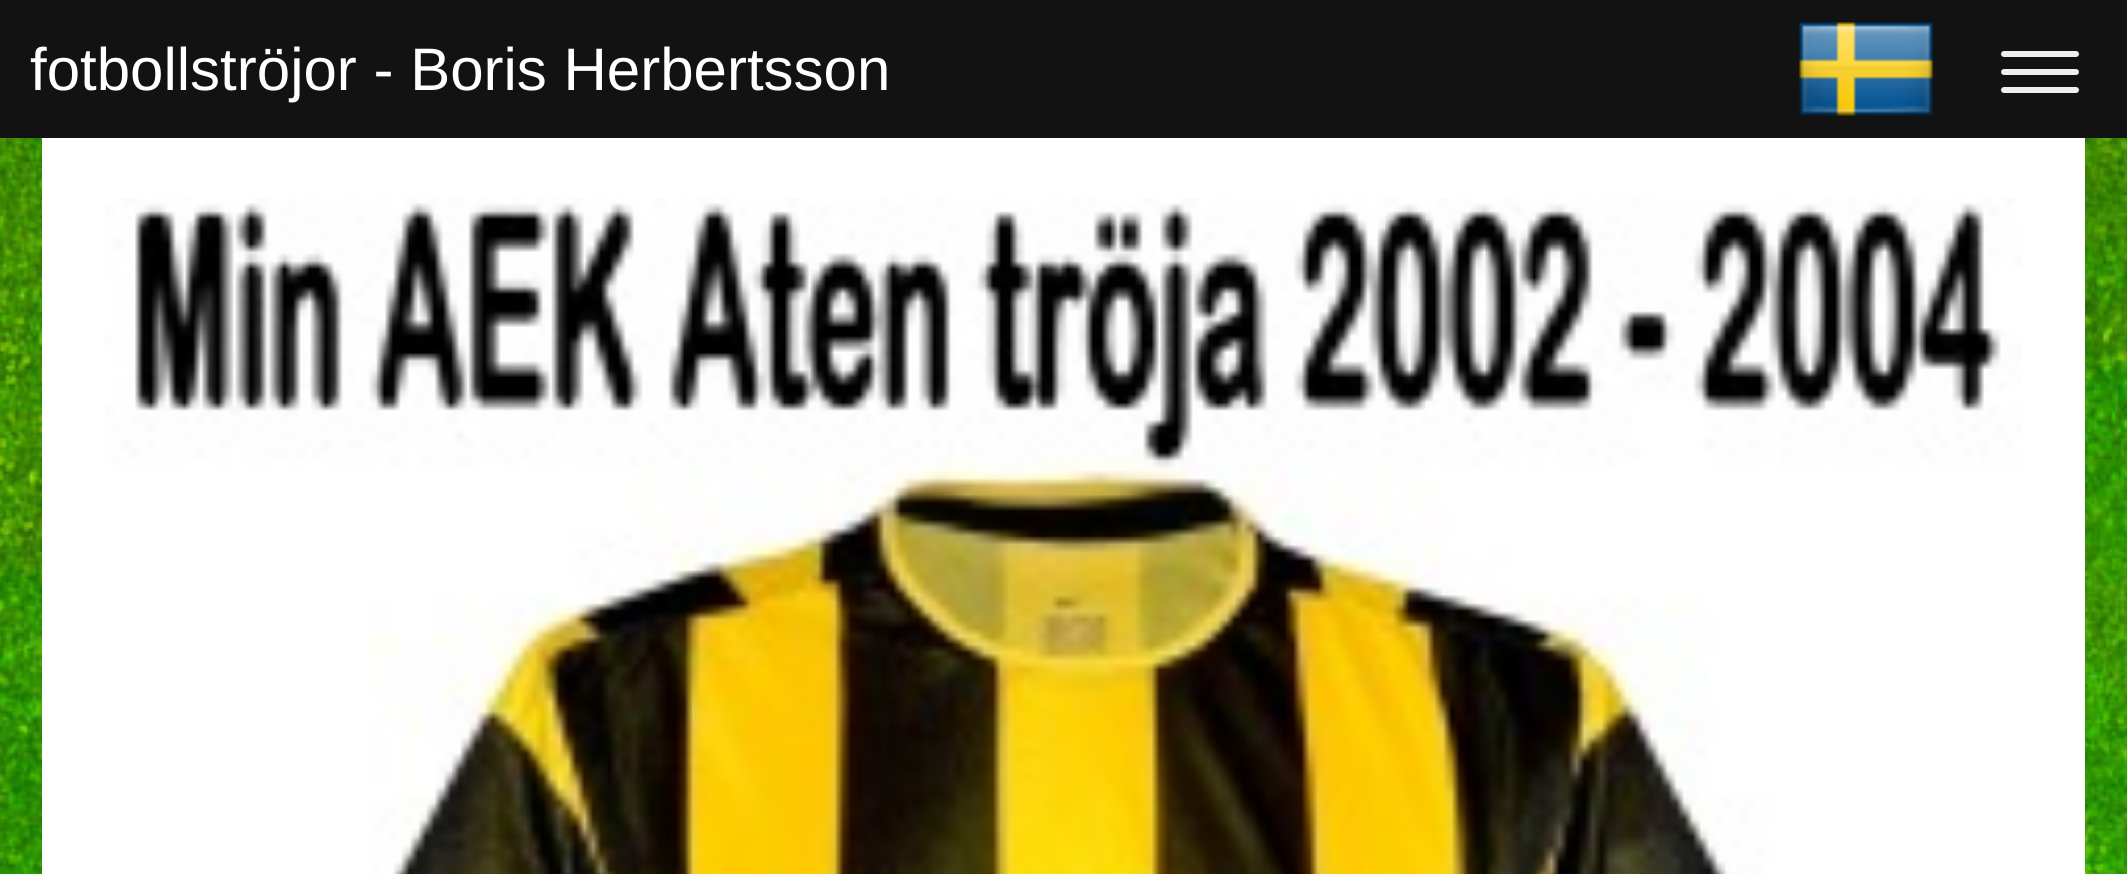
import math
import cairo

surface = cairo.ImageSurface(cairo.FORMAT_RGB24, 2127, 874)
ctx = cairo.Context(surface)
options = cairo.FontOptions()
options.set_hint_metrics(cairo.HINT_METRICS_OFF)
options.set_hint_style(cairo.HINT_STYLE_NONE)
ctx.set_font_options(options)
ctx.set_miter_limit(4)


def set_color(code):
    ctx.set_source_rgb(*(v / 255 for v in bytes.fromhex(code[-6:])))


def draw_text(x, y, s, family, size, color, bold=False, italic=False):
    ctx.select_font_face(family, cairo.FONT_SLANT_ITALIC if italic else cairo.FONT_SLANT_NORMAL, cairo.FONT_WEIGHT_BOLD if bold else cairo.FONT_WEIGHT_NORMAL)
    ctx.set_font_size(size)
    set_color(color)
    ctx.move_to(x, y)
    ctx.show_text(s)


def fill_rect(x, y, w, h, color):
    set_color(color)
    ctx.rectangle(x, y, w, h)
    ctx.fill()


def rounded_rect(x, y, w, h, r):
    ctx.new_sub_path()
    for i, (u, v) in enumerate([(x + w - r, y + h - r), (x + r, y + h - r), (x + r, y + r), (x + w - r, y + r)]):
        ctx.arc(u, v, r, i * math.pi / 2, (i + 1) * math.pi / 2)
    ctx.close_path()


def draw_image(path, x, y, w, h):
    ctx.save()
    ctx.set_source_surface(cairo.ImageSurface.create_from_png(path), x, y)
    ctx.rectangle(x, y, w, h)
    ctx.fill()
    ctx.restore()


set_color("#ffffff")
ctx.paint()
draw_image("assets/img1.png", 0, 138, 2127, 736)
fill_rect(0, 0, 2127, 138, "#121212")
draw_text(30, 90, "fotbollströjor - Boris Herbertsson", "Liberation Sans", 60, "#ffffff")
draw_image("assets/img2.png", 1799, 22, 135, 94)
set_color("#eeeeee")
rounded_rect(2001, 51, 78, 6, 3)
ctx.fill()
rounded_rect(2001, 69, 78, 6, 3)
ctx.fill()
rounded_rect(2001, 87, 78, 6, 3)
ctx.fill()
fill_rect(42, 138, 2043, 736, "#ffffff")
draw_image("assets/img3.png", 105, 198, 1917, 676)
surface.write_to_png("output.png")
